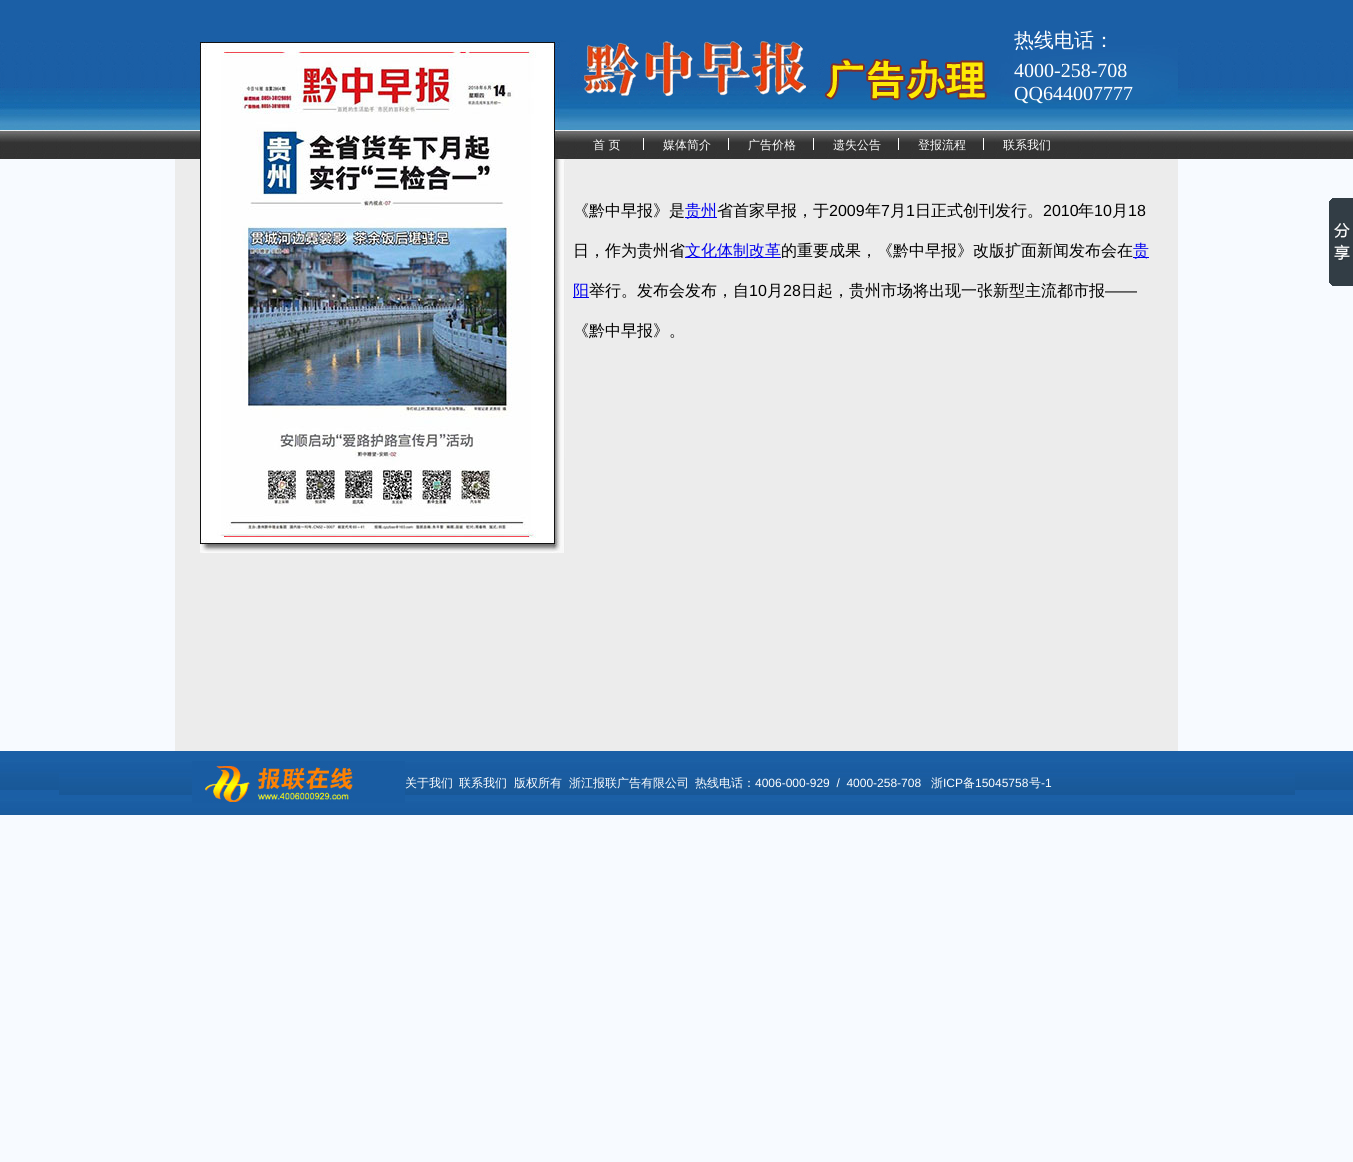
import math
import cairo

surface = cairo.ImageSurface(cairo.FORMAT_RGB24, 1353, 1162)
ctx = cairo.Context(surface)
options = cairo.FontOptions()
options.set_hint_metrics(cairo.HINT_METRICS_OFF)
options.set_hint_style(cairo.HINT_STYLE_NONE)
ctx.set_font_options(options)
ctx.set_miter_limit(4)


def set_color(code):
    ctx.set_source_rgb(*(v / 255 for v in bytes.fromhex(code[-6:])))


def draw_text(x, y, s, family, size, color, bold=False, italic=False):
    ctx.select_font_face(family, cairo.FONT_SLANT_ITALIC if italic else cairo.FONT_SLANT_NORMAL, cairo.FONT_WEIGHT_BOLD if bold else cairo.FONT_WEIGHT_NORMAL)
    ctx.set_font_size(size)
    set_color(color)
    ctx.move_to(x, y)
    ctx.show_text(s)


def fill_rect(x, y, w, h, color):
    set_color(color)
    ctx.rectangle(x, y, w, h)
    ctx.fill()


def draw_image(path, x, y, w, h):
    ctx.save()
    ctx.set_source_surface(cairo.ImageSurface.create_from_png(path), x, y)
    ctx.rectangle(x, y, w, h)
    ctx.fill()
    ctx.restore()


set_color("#f7faff")
ctx.paint()
draw_image("assets/img1.png", 0, 0, 1353, 159)
fill_rect(200, 553, 369, 198, "#ececec")
draw_image("assets/img2.png", 200, 42, 369, 511)
draw_image("assets/img3.png", 569, 40, 609, 91)
draw_text(1014, 47, "热线电话：", "WenQuanYi Zen Hei Medium", 20, "#ffffff")
draw_text(1014, 77, "4000-258-708", "Liberation Serif", 20, "#ffffff")
draw_text(1014, 100, "QQ644007777", "Liberation Serif", 20, "#ffffff")
fill_rect(643, 138, 1, 12, "#ffffff")
draw_text(593, 149, "首 页", "WenQuanYi Zen Hei Medium", 12, "#ffffff")
fill_rect(728, 138, 1, 12, "#ffffff")
draw_text(663, 149, "媒体简介", "WenQuanYi Zen Hei Medium", 12, "#ffffff")
fill_rect(813, 138, 1, 12, "#ffffff")
draw_text(748, 149, "广告价格", "WenQuanYi Zen Hei Medium", 12, "#ffffff")
fill_rect(898, 138, 1, 12, "#ffffff")
draw_text(833, 149, "遗失公告", "WenQuanYi Zen Hei Medium", 12, "#ffffff")
fill_rect(983, 138, 1, 12, "#ffffff")
draw_text(918, 149, "登报流程", "WenQuanYi Zen Hei Medium", 12, "#ffffff")
draw_text(1003, 149, "联系我们", "WenQuanYi Zen Hei Medium", 12, "#ffffff")
fill_rect(175, 159, 25, 592, "#ececec")
fill_rect(569, 159, 609, 592, "#ececec")
draw_text(573, 216, "《黔中早报》是", "WenQuanYi Zen Hei Medium", 16, "#000000")
fill_rect(685, 217, 32, 1, "#0000ee")
draw_text(685, 216, "贵州", "WenQuanYi Zen Hei Medium", 16, "#0000ee")
draw_text(717, 216, "省首家早报，于", "WenQuanYi Zen Hei Medium", 16, "#000000")
draw_text(829, 216, "2009", "Liberation Sans", 16, "#000000")
draw_text(865, 216, "年", "WenQuanYi Zen Hei Medium", 16, "#000000")
draw_text(881, 216, "7", "Liberation Sans", 16, "#000000")
draw_text(890, 216, "月", "WenQuanYi Zen Hei Medium", 16, "#000000")
draw_text(906, 216, "1", "Liberation Sans", 16, "#000000")
draw_text(915, 216, "日正式创刊发行。", "WenQuanYi Zen Hei Medium", 16, "#000000")
draw_text(1043, 216, "2010", "Liberation Sans", 16, "#000000")
draw_text(1078, 216, "年", "WenQuanYi Zen Hei Medium", 16, "#000000")
draw_text(1094, 216, "10", "Liberation Sans", 16, "#000000")
draw_text(1112, 216, "月", "WenQuanYi Zen Hei Medium", 16, "#000000")
draw_text(1128, 216, "18", "Liberation Sans", 16, "#000000")
draw_text(573, 256, "日，作为贵州省", "WenQuanYi Zen Hei Medium", 16, "#000000")
fill_rect(685, 257, 96, 1, "#0000ee")
draw_text(685, 256, "文化体制改革", "WenQuanYi Zen Hei Medium", 16, "#0000ee")
draw_text(781, 256, "的重要成果，《黔中早报》改版扩面新闻发布会在", "WenQuanYi Zen Hei Medium", 16, "#000000")
fill_rect(1133, 257, 16, 1, "#0000ee")
draw_text(1133, 256, "贵", "WenQuanYi Zen Hei Medium", 16, "#0000ee")
fill_rect(573, 297, 16, 1, "#0000ee")
draw_text(573, 296, "阳", "WenQuanYi Zen Hei Medium", 16, "#0000ee")
draw_text(589, 296, "举行。发布会发布，自", "WenQuanYi Zen Hei Medium", 16, "#000000")
draw_text(749, 296, "10", "Liberation Sans", 16, "#000000")
draw_text(767, 296, "月", "WenQuanYi Zen Hei Medium", 16, "#000000")
draw_text(783, 296, "28", "Liberation Sans", 16, "#000000")
draw_text(801, 296, "日起，贵州市场将出现一张新型主流都市报", "WenQuanYi Zen Hei Medium", 16, "#000000")
draw_text(1105, 296, "——", "Liberation Sans", 16, "#000000")
draw_text(573, 336, "《黔中早报》。", "WenQuanYi Zen Hei Medium", 16, "#000000")
draw_image("assets/img4.png", 1329, 198, 24, 88)
draw_image("assets/img5.png", 0, 751, 1353, 64)
draw_image("assets/img6.png", 59, 773, 1236, 22)
draw_image("assets/img7.png", 192, 761, 213, 42)
draw_text(405, 787, "关于我们", "WenQuanYi Zen Hei Medium", 12, "#ffffff")
draw_text(459, 787, "联系我们", "WenQuanYi Zen Hei Medium", 12, "#ffffff")
draw_text(514, 787, "版权所有", "WenQuanYi Zen Hei Medium", 12, "#ffffff")
draw_text(569, 787, "浙江报联广告有限公司", "WenQuanYi Zen Hei Medium", 12, "#ffffff")
draw_text(695, 787, "热线电话：", "WenQuanYi Zen Hei Medium", 12, "#ffffff")
draw_text(755, 787, "4006-000-929  /  4000-258-708", "Liberation Sans", 12, "#ffffff")
draw_text(931, 787, "浙", "WenQuanYi Zen Hei Medium", 12, "#ffffff")
draw_text(943, 787, "ICP", "Liberation Sans", 12, "#ffffff")
draw_text(963, 787, "备", "WenQuanYi Zen Hei Medium", 12, "#ffffff")
draw_text(975, 787, "15045758", "Liberation Sans", 12, "#ffffff")
draw_text(1029, 787, "号", "WenQuanYi Zen Hei Medium", 12, "#ffffff")
draw_text(1041, 787, "-1", "Liberation Sans", 12, "#ffffff")
surface.write_to_png("output.png")
